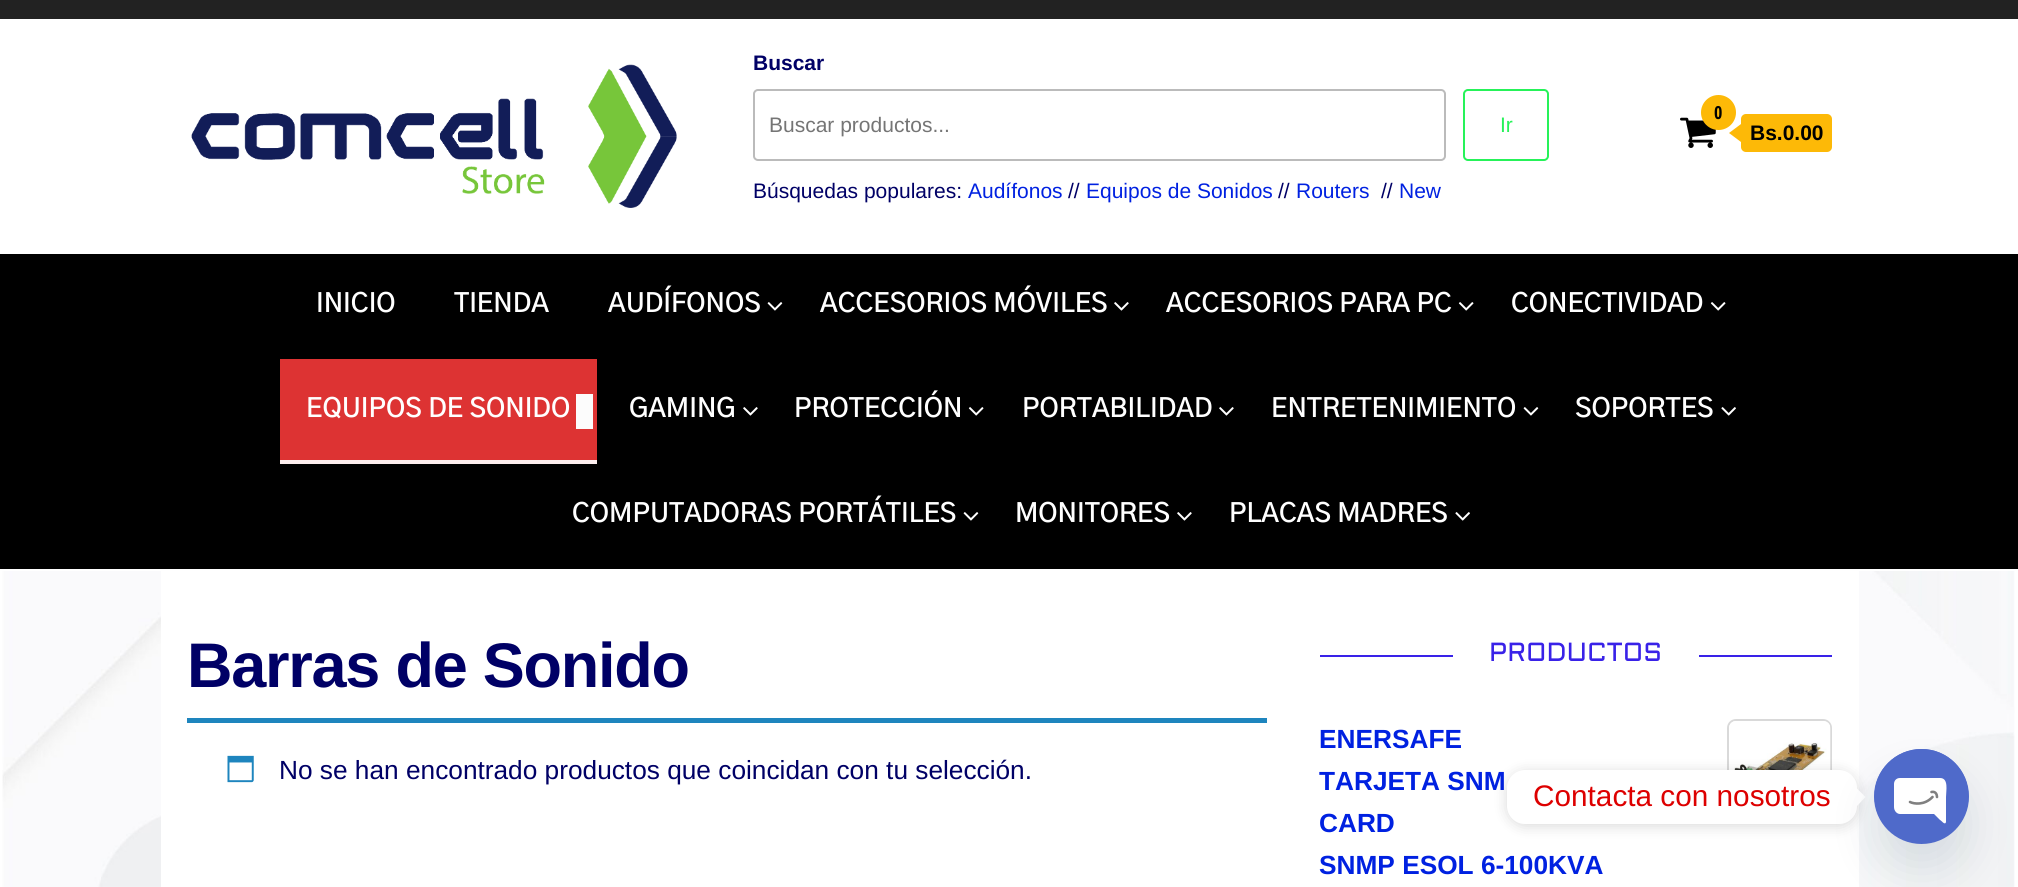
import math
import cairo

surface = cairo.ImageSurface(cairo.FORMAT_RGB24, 2018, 887)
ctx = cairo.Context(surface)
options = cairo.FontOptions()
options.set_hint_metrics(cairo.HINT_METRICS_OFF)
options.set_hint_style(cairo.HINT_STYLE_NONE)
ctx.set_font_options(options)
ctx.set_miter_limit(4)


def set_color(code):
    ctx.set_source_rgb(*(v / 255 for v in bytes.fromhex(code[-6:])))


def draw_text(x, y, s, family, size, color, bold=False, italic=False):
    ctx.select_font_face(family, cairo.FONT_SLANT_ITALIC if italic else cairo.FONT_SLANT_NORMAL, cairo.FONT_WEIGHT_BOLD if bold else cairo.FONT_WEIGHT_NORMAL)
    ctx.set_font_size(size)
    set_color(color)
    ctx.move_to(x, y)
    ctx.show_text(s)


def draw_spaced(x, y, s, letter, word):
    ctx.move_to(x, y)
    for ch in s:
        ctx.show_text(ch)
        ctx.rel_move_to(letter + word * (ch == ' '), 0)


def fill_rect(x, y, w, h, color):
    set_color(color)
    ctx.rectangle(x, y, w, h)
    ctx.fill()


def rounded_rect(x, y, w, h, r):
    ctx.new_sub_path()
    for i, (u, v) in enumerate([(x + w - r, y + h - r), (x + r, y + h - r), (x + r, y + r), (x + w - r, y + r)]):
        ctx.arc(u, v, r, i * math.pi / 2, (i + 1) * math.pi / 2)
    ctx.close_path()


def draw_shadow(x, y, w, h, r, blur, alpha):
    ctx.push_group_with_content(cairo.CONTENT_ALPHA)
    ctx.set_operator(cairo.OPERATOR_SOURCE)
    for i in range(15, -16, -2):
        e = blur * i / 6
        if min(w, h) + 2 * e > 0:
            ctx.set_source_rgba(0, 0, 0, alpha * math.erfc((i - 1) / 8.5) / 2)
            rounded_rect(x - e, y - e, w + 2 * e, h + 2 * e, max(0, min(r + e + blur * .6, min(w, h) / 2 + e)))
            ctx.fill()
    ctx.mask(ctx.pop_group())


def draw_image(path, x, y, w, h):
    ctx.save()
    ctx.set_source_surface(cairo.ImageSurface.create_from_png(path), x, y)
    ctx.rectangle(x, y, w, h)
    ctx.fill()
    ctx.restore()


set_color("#ffffff")
ctx.paint()
draw_image("assets/img1.png", 2, 571, 2013, 316)
fill_rect(0, 0, 2018, 19, "#222222")
draw_image("assets/img2.png", 191, 64, 486, 144)
draw_text(753, 70, "Buscar", "Liberation Sans", 21, "#000066", bold=True)
rounded_rect(754, 90, 691, 70, 4)
set_color("#bbbbbb")
ctx.stroke()
draw_text(769, 132, "Buscar productos...", "Liberation Sans", 21, "#757575")
rounded_rect(1464, 90, 84, 70, 4)
set_color("#26f259")
ctx.stroke()
draw_text(1500, 132, "Ir", "Liberation Sans", 21, "#26f259")
draw_text(753, 198, "Búsquedas populares:", "Liberation Sans", 21, "#000066")
draw_text(968, 198, "Audífonos", "Liberation Sans", 21, "#0021e1")
draw_text(1068, 198, "//", "Liberation Sans", 21, "#000066")
draw_text(1086, 198, "Equipos de Sonidos", "Liberation Sans", 21, "#0021e1")
draw_text(1278, 198, "//", "Liberation Sans", 21, "#000066")
draw_text(1296, 198, "Routers", "Liberation Sans", 21, "#0021e1")
draw_text(1381, 198, "//", "Liberation Sans", 21, "#000066")
draw_text(1399, 198, "New", "Liberation Sans", 21, "#0021e1")
draw_image("assets/img3.png", 1680, 117, 36, 31)
set_color("#fdb907")
ctx.arc(1718.5, 112.5, 17.5, 0, 2 * math.pi)
ctx.fill()
draw_text(1714, 119, "0", "Open Sans Condensed", 18, "#000000", bold=True)
set_color("#fdb907")
rounded_rect(1741, 114, 91, 38, 5)
ctx.fill()
ctx.new_path()
ctx.move_to(1741, 124)
ctx.line_to(1741, 142)
ctx.line_to(1729, 133)
ctx.close_path()
ctx.fill()
draw_text(1750, 140, "Bs.0.00", "Liberation Sans", 21, "#000000", bold=True)
fill_rect(0, 254, 2018, 315, "#000000")
draw_text(316, 312, "INICIO", "Gothic A1 SemiBold", 26.25, "#ffffff")
draw_text(454, 312, "TIENDA", "Gothic A1 SemiBold", 26.25, "#ffffff")
draw_text(608, 312, "AUDÍFONOS", "Gothic A1 SemiBold", 26.25, "#ffffff")
draw_image("assets/img4.png", 767, 302, 16, 9)
draw_text(820, 312, "ACCESORIOS MÓVILES", "Gothic A1 SemiBold", 26.25, "#ffffff")
draw_image("assets/img5.png", 1114, 302, 15, 9)
draw_text(1166, 312, "ACCESORIOS PARA PC", "Gothic A1 SemiBold", 26.25, "#ffffff")
draw_image("assets/img6.png", 1458, 302, 16, 9)
draw_text(1511, 312, "CONECTIVIDAD", "Gothic A1 SemiBold", 26.25, "#ffffff")
draw_image("assets/img6.png", 1710, 302, 16, 9)
fill_rect(280, 359, 317, 101, "#dd3333")
draw_text(306, 417, "EQUIPOS DE SONIDO", "Gothic A1 SemiBold", 26.25, "#ffffff")
fill_rect(576, 394, 17, 35, "#fcfcfc")
fill_rect(280, 460, 317, 4, "#fef0f0")
draw_text(629, 417, "GAMING", "Gothic A1 SemiBold", 26.25, "#ffffff")
draw_image("assets/img5.png", 743, 407, 15, 9)
draw_text(794, 417, "PROTECCIÓN", "Gothic A1 SemiBold", 26.25, "#ffffff")
draw_image("assets/img6.png", 968, 407, 16, 9)
draw_text(1022, 417, "PORTABILIDAD", "Gothic A1 SemiBold", 26.25, "#ffffff")
draw_image("assets/img5.png", 1219, 407, 15, 9)
draw_text(1271, 417, "ENTRETENIMIENTO", "Gothic A1 SemiBold", 26.25, "#ffffff")
draw_image("assets/img4.png", 1523, 407, 16, 9)
draw_text(1575, 417, "SOPORTES", "Gothic A1 SemiBold", 26.25, "#ffffff")
draw_image("assets/img7.png", 1721, 407, 15, 9)
draw_text(572, 522, "COMPUTADORAS PORTÁTILES", "Gothic A1 SemiBold", 26.25, "#ffffff")
draw_image("assets/img4.png", 963, 512, 16, 9)
draw_text(1015, 522, "MONITORES", "Gothic A1 SemiBold", 26.25, "#ffffff")
draw_image("assets/img5.png", 1177, 512, 15, 9)
draw_text(1229, 522, "PLACAS MADRES", "Gothic A1 SemiBold", 26.25, "#ffffff")
draw_image("assets/img7.png", 1455, 512, 15, 9)
fill_rect(161, 571, 1698, 316, "#ffffff")
ctx.select_font_face("Liberation Sans", cairo.FONT_SLANT_NORMAL, cairo.FONT_WEIGHT_BOLD)
ctx.set_font_size(63)
set_color("#000066")
draw_spaced(187, 687, "Barras de Sonido", -1.25, 0)
fill_rect(187, 718, 1080, 5, "#1e85be")
draw_image("assets/img8.png", 227, 755, 27, 28)
draw_text(279, 779, "No se han encontrado productos que coincidan con tu selección.", "Liberation Sans", 26.25, "#000066")
fill_rect(1320, 655, 512, 2, "#3922e8")
fill_rect(1453, 655, 246, 2, "#ffffff")
draw_text(1489, 661, "PRODUCTOS", "Aldrich", 26.25, "#3922e8")
draw_text(1319, 748, "ENERSAFE", "Liberation Sans", 26.25, "#0021e1", bold=True)
rounded_rect(1728, 720, 103, 103, 8)
set_color("#d9d9d9")
ctx.stroke()
draw_image("assets/img9.png", 1729, 721, 102, 49)
draw_text(1319, 790, "TARJETA SNM", "Liberation Sans", 26.25, "#0021e1", bold=True)
draw_text(1319, 832, "CARD", "Liberation Sans", 26.25, "#0021e1", bold=True)
draw_text(1319, 874, "SNMP ESOL 6-100KVA", "Liberation Sans", 26.25, "#0021e1", bold=True)
set_color("#000000")
draw_shadow(1507, 772, 350, 54, 18, 7, 0.15)
set_color("#ffffff")
rounded_rect(1507, 770, 350, 54, 18)
ctx.fill()
draw_text(1533, 806, "Contacta con nosotros", "Liberation Sans", 29.75, "#dd0000")
set_color("#ffffff")
ctx.new_path()
ctx.move_to(1857, 806)
ctx.line_to(1857, 788.5)
ctx.line_to(1865.5, 797)
ctx.close_path()
ctx.fill()
set_color("#49687e")
draw_shadow(1874, 777, 95, 95, 47.5, 21, 0.16)
set_color("#4f6aca")
ctx.arc(1921.5, 796.5, 47.5, 0, 2 * math.pi)
ctx.fill()
ctx.arc(1921.5, 796, 47, 0, 2 * math.pi)
ctx.fill()
set_color("#ffffff")
ctx.new_path()
ctx.move_to(1940, 778)
ctx.line_to(1900, 778)
ctx.curve_to(1896, 778, 1894, 781, 1894, 784)
ctx.line_to(1894, 807)
ctx.curve_to(1894, 811, 1897, 814, 1900, 814)
ctx.line_to(1934, 814)
ctx.line_to(1940, 820)
ctx.curve_to(1941, 820, 1945, 826, 1946, 822)
ctx.line_to(1946, 797)
ctx.curve_to(1946, 791, 1949, 778, 1940, 778)
ctx.close_path()
ctx.fill()
ctx.new_path()
ctx.move_to(1910, 802)
ctx.curve_to(1914, 804, 1924.5, 805.5, 1932.5, 797)
ctx.move_to(1937, 797)
ctx.curve_to(1937, 795, 1936, 791, 1931.5, 792)
set_color("#808080")
ctx.set_line_width(2.6)
ctx.set_line_cap(cairo.LINE_CAP_ROUND)
ctx.set_line_join(cairo.LINE_JOIN_ROUND)
ctx.stroke()
surface.write_to_png("output.png")
